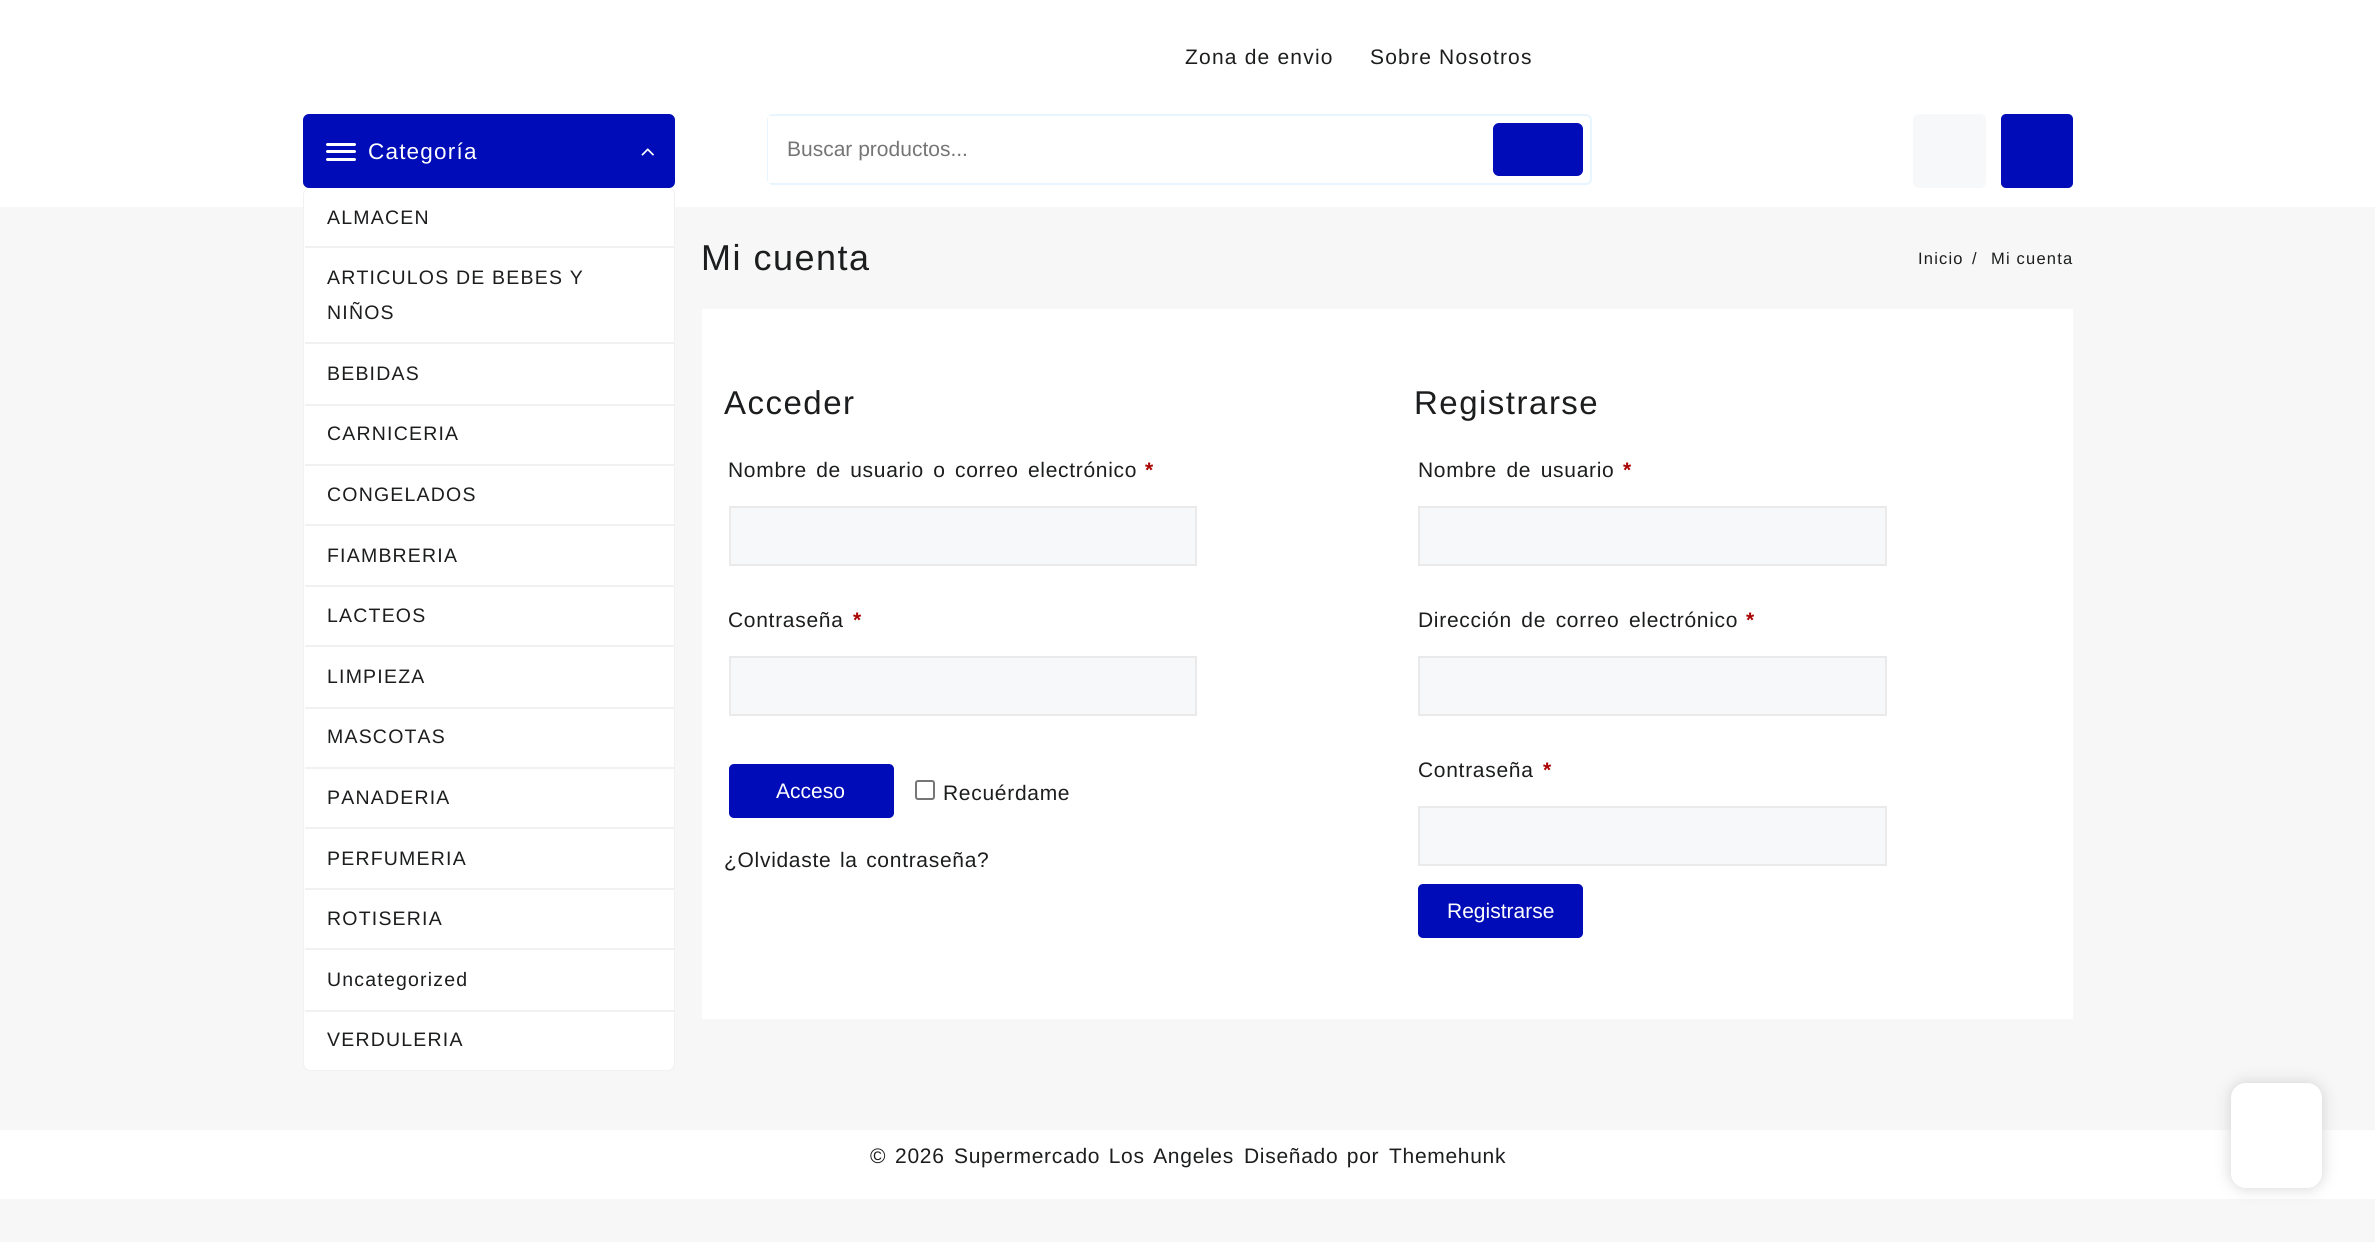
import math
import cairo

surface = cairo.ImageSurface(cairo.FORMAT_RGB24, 2375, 1242)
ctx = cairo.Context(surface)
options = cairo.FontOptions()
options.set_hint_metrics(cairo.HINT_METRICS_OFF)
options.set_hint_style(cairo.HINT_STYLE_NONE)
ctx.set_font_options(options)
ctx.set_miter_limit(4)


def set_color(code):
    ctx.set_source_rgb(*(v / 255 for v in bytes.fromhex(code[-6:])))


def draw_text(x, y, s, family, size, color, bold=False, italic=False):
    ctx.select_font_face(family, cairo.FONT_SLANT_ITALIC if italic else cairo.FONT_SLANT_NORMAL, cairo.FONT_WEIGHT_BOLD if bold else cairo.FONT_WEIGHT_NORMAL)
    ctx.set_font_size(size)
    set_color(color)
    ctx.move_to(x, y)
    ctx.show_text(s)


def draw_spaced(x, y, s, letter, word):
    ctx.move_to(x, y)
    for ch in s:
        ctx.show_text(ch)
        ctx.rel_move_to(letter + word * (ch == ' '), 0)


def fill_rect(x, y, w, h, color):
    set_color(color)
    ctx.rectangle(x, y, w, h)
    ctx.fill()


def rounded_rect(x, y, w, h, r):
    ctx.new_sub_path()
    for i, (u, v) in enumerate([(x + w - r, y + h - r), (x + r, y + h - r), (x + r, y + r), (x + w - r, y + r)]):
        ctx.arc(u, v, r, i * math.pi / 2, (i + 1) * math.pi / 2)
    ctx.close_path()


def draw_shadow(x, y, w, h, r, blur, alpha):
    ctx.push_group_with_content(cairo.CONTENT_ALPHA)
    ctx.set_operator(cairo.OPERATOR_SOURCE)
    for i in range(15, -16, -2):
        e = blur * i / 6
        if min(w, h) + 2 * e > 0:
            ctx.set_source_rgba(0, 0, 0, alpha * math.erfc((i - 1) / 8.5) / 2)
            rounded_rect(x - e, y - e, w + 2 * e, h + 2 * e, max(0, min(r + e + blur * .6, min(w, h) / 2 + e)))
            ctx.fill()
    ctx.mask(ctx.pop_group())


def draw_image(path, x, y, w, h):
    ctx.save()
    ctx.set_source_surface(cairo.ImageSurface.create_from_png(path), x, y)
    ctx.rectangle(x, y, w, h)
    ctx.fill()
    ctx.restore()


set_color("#f7f7f7")
ctx.paint()
fill_rect(0, 0, 2375, 207, "#ffffff")
ctx.select_font_face("Liberation Sans")
ctx.set_font_size(21)
set_color("#1c1d1e")
draw_spaced(1185, 64, "Zona de envio", 1.2, 0)
draw_spaced(1370, 64, "Sobre Nosotros", 1.2, 0)
set_color("#000cb7")
rounded_rect(303, 114, 372, 74, 6)
ctx.fill()
set_color("#ffffff")
rounded_rect(326, 143, 30, 3, 1.5)
ctx.fill()
rounded_rect(326, 150, 30, 3, 1.5)
ctx.fill()
rounded_rect(326, 158, 30, 3, 1.5)
ctx.fill()
ctx.set_font_size(22.5)
draw_spaced(368, 159, "Categoría", 1.2, 0)
draw_image("assets/img1.png", 641, 148, 13, 8)
rounded_rect(303, 188, 372, 883, 8)
ctx.fill()
set_color("#f1f1f1")
ctx.set_fill_rule(cairo.FILL_RULE_EVEN_ODD)
ctx.new_path()
ctx.move_to(310, 188)
ctx.line_to(668, 188)
ctx.curve_to(672, 188, 675, 191, 675, 195)
ctx.line_to(675, 1064)
ctx.curve_to(675, 1068, 672, 1071, 668, 1071)
ctx.line_to(310, 1071)
ctx.curve_to(306, 1071, 303, 1068, 303, 1064)
ctx.line_to(303, 195)
ctx.curve_to(303, 191, 306, 188, 310, 188)
ctx.close_path()
ctx.move_to(310, 188)
ctx.line_to(668, 188)
ctx.curve_to(671, 188, 674, 191, 674, 195)
ctx.line_to(674, 1064)
ctx.curve_to(674, 1067, 671, 1070, 668, 1070)
ctx.line_to(310, 1070)
ctx.curve_to(307, 1070, 304, 1067, 304, 1064)
ctx.line_to(304, 195)
ctx.curve_to(304, 191, 307, 188, 310, 188)
ctx.close_path()
ctx.fill()
fill_rect(305, 246, 369, 2, "#f1f1f1")
ctx.set_font_size(19.5)
set_color("#1c1d1e")
draw_spaced(327, 224, "ALMACEN", 1.2, 0)
fill_rect(305, 342, 369, 2, "#f1f1f1")
set_color("#1c1d1e")
draw_spaced(327, 284, "ARTICULOS DE BEBES Y", 1.2, 0)
draw_spaced(327, 319, "NIÑOS", 1.2, 0)
fill_rect(305, 404, 369, 2, "#f1f1f1")
set_color("#1c1d1e")
draw_spaced(327, 380, "BEBIDAS", 1.2, 0)
fill_rect(305, 464, 369, 2, "#f1f1f1")
set_color("#1c1d1e")
draw_spaced(327, 440, "CARNICERIA", 1.2, 0)
fill_rect(305, 524, 369, 2, "#f1f1f1")
set_color("#1c1d1e")
draw_spaced(327, 501, "CONGELADOS", 1.2, 0)
fill_rect(305, 585, 369, 2, "#f1f1f1")
set_color("#1c1d1e")
draw_spaced(327, 562, "FIAMBRERIA", 1.2, 0)
fill_rect(305, 645, 369, 2, "#f1f1f1")
set_color("#1c1d1e")
draw_spaced(327, 622, "LACTEOS", 1.2, 0)
fill_rect(305, 707, 369, 2, "#f1f1f1")
set_color("#1c1d1e")
draw_spaced(327, 683, "LIMPIEZA", 1.2, 0)
fill_rect(305, 767, 369, 2, "#f1f1f1")
set_color("#1c1d1e")
draw_spaced(327, 743, "MASCOTAS", 1.2, 0)
fill_rect(305, 827, 369, 2, "#f1f1f1")
set_color("#1c1d1e")
draw_spaced(327, 804, "PANADERIA", 1.2, 0)
fill_rect(305, 888, 369, 2, "#f1f1f1")
set_color("#1c1d1e")
draw_spaced(327, 865, "PERFUMERIA", 1.2, 0)
fill_rect(305, 948, 369, 2, "#f1f1f1")
set_color("#1c1d1e")
draw_spaced(327, 925, "ROTISERIA", 1.2, 0)
fill_rect(305, 1010, 369, 2, "#f1f1f1")
set_color("#1c1d1e")
draw_spaced(327, 986, "Uncategorized", 1.2, 0)
draw_spaced(327, 1046, "VERDULERIA", 1.2, 0)
rounded_rect(768, 115, 823, 69, 5)
set_color("#e7f5ff")
ctx.stroke()
fill_rect(768, 116, 4, 67, "#ffffff")
draw_text(787, 156, "Buscar productos...", "Liberation Sans", 21, "#757575")
set_color("#000cb7")
rounded_rect(1493, 123, 90, 53, 6)
ctx.fill()
set_color("#f7f8f9")
rounded_rect(1913, 114, 73, 74, 6)
ctx.fill()
set_color("#000cb7")
rounded_rect(2001, 114, 72, 74, 5)
ctx.fill()
ctx.set_font_size(36)
set_color("#1c1d1e")
draw_spaced(701, 270, "Mi cuenta", 1.5, 0)
ctx.set_font_size(16.5)
draw_spaced(1918, 264, "Inicio", 1.2, 0)
draw_spaced(1972, 264, "/", 1.2, 0)
draw_spaced(1991, 264, "Mi cuenta", 1.2, 0)
fill_rect(702, 309, 1371, 710, "#ffffff")
ctx.set_font_size(33)
set_color("#1c1d1e")
draw_spaced(724, 414, "Acceder", 1.5, 0)
ctx.set_font_size(21)
draw_spaced(728, 477, "Nombre de usuario o correo electrónico", 0.7, 2.75)
ctx.select_font_face("Liberation Sans", cairo.FONT_SLANT_NORMAL, cairo.FONT_WEIGHT_BOLD)
set_color("#aa0000")
draw_spaced(1145, 477, "*", 0.7, 0)
set_color("#f7f8f9")
ctx.rectangle(730, 507, 466, 58)
ctx.fill_preserve()
set_color("#eaeaea")
ctx.stroke()
ctx.select_font_face("Liberation Sans")
set_color("#1c1d1e")
draw_spaced(728, 627, "Contraseña", 0.7, 0)
ctx.select_font_face("Liberation Sans", cairo.FONT_SLANT_NORMAL, cairo.FONT_WEIGHT_BOLD)
set_color("#aa0000")
draw_spaced(853, 627, "*", 0.7, 0)
set_color("#f7f8f9")
ctx.rectangle(730, 657, 466, 58)
ctx.fill_preserve()
set_color("#eaeaea")
ctx.stroke()
set_color("#000cb7")
rounded_rect(729, 764, 165, 54, 5)
ctx.fill()
draw_text(776, 798, "Acceso", "Liberation Sans", 21, "#ffffff")
rounded_rect(916, 781, 18, 18, 2)
set_color("#767676")
ctx.stroke()
set_color("#1c1d1e")
draw_spaced(943, 800, "Recuérdame", 0.7, 0)
draw_spaced(724, 867, "¿Olvidaste la contraseña?", 0.7, 2)
ctx.set_font_size(33)
draw_spaced(1414, 414, "Registrarse", 1.5, 0)
ctx.set_font_size(21)
draw_spaced(1418, 477, "Nombre de usuario", 0.7, 3)
ctx.select_font_face("Liberation Sans", cairo.FONT_SLANT_NORMAL, cairo.FONT_WEIGHT_BOLD)
set_color("#aa0000")
draw_spaced(1623, 477, "*", 0.7, 0)
set_color("#f7f8f9")
ctx.rectangle(1419, 507, 467, 58)
ctx.fill_preserve()
set_color("#eaeaea")
ctx.stroke()
ctx.select_font_face("Liberation Sans")
set_color("#1c1d1e")
draw_spaced(1418, 627, "Dirección de correo electrónico", 0.7, 3)
ctx.select_font_face("Liberation Sans", cairo.FONT_SLANT_NORMAL, cairo.FONT_WEIGHT_BOLD)
set_color("#aa0000")
draw_spaced(1746, 627, "*", 0.7, 0)
set_color("#f7f8f9")
ctx.rectangle(1419, 657, 467, 58)
ctx.fill_preserve()
set_color("#eaeaea")
ctx.stroke()
ctx.select_font_face("Liberation Sans")
set_color("#1c1d1e")
draw_spaced(1418, 777, "Contraseña", 0.7, 0)
ctx.select_font_face("Liberation Sans", cairo.FONT_SLANT_NORMAL, cairo.FONT_WEIGHT_BOLD)
set_color("#aa0000")
draw_spaced(1543, 777, "*", 0.7, 0)
set_color("#f7f8f9")
ctx.rectangle(1419, 807, 467, 58)
ctx.fill_preserve()
set_color("#eaeaea")
ctx.stroke()
set_color("#000cb7")
rounded_rect(1418, 884, 165, 54, 5)
ctx.fill()
draw_text(1447, 918, "Registrarse", "Liberation Sans", 21, "#ffffff")
fill_rect(0, 1130, 2375, 69, "#ffffff")
set_color("#1c1d1e")
draw_spaced(870, 1163, "©", 0.7, 0)
draw_spaced(895, 1163, "2026", 0.7, 0)
draw_spaced(954, 1163, "Supermercado Los Angeles", 0.7, 2)
draw_spaced(1244, 1163, "Diseñado por", 0.7, 2)
draw_spaced(1389, 1163, "Themehunk", 0.7, 0)
set_color("#b7b7b7")
draw_shadow(2231, 1083, 91, 105, 15, 7.5, 0.6)
set_color("#ffffff")
rounded_rect(2231, 1083, 91, 105, 15)
ctx.fill()
surface.write_to_png("output.png")
